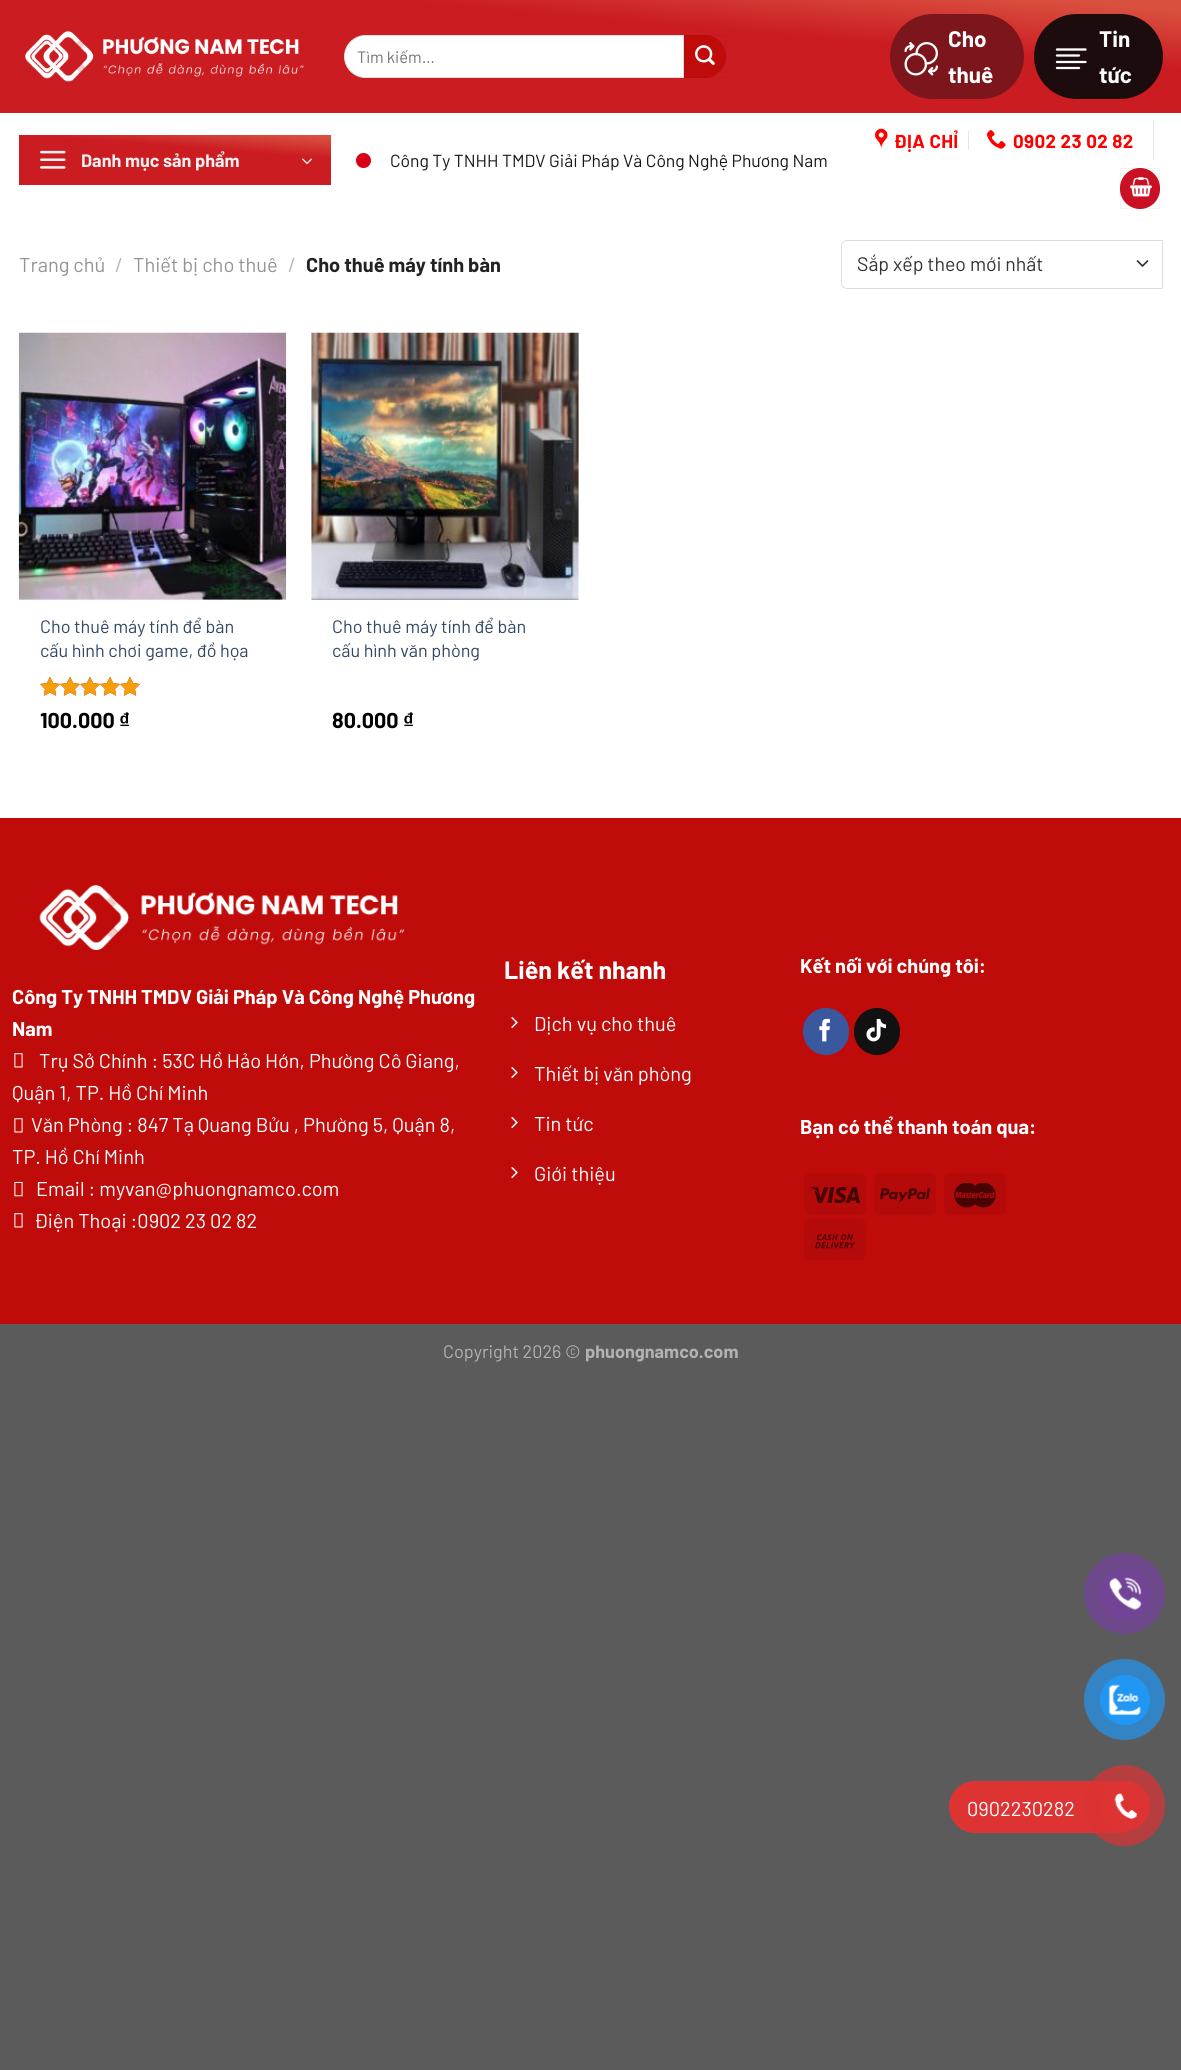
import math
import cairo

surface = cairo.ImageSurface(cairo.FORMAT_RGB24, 1181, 2070)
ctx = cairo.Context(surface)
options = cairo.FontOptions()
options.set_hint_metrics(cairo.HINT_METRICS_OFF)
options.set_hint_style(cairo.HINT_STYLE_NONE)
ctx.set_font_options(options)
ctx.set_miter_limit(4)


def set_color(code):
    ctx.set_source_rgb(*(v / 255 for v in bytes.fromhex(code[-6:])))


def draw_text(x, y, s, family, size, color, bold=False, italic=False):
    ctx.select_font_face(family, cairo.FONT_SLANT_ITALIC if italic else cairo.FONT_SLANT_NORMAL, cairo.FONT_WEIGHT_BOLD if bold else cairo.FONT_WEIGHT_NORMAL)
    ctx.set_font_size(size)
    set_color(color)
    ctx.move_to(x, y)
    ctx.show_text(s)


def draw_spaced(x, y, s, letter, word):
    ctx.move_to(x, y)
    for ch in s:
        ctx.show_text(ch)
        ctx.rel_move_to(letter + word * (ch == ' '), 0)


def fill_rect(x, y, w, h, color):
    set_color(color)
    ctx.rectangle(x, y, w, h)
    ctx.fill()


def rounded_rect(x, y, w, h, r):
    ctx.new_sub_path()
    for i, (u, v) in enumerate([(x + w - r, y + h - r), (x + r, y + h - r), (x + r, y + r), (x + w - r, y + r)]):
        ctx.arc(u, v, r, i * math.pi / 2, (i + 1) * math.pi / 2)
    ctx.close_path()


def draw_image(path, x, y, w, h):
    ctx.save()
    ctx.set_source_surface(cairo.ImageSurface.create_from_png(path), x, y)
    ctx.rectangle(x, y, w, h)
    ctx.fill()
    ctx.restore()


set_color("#5b5b5b")
ctx.paint()
fill_rect(0, 113, 1181, 705, "#ffffff")
gradient = cairo.LinearGradient(581, 163, 600, -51)
gradient.add_color_stop_rgba(0.68, 0.796, 0.11, 0.133, 1)
gradient.add_color_stop_rgba(0.95, 0.851, 0.314, 0.247, 1)
ctx.set_source(gradient)
ctx.rectangle(0, 0, 1181, 113)
ctx.fill()
draw_image("assets/img1.png", 25, 31, 279, 51)
set_color("#ffffff")
ctx.new_path()
ctx.move_to(365.5, 35.5)
ctx.line_to(683.5, 35.5)
ctx.line_to(683.5, 77.5)
ctx.line_to(365.5, 77.5)
ctx.curve_to(354, 77.5, 344.5, 68, 344.5, 56.5)
ctx.curve_to(344.5, 45, 354, 35.5, 365.5, 35.5)
ctx.close_path()
ctx.fill_preserve()
set_color("#dddddd")
ctx.set_line_width(1)
ctx.stroke()
draw_text(357, 63, "Tìm kiếm…", "Barlow", 16.5, "#757575")
set_color("#c00b0b")
ctx.new_path()
ctx.move_to(684, 35)
ctx.line_to(705, 35)
ctx.curve_to(716.5, 35, 726, 44.5, 726, 56)
ctx.line_to(726, 57)
ctx.curve_to(726, 68.5, 716.5, 78, 705, 78)
ctx.line_to(684, 78)
ctx.close_path()
ctx.fill()
ctx.rectangle(684.5, 35.5, 41, 42)
ctx.set_source_rgba(0, 0, 0, 0.05)
ctx.stroke()
draw_image("assets/img2.png", 695, 45, 20, 20)
set_color("#7d161c")
rounded_rect(890, 14, 134, 85, 42.5)
ctx.fill()
draw_image("assets/img3.png", 904, 42, 34, 34)
draw_text(948, 47, "Cho", "Barlow", 22.5, "#ffffff", bold=True)
draw_text(948, 83, "thuê", "Barlow", 22.5, "#ffffff", bold=True)
set_color("#1c0c0d")
rounded_rect(1034, 14, 129, 85, 42.5)
ctx.fill()
ctx.new_path()
ctx.move_to(1057, 55.5)
ctx.line_to(1079, 55.5)
ctx.move_to(1057, 49.5)
ctx.line_to(1085.5, 49.5)
ctx.move_to(1057, 68)
ctx.line_to(1079, 68)
ctx.move_to(1057, 62)
ctx.line_to(1085.5, 62)
set_color("#ffffff")
ctx.set_line_width(2.3)
ctx.set_line_cap(cairo.LINE_CAP_ROUND)
ctx.set_line_join(cairo.LINE_JOIN_ROUND)
ctx.stroke()
draw_text(1099, 47, "Tin", "Barlow", 22.5, "#ffffff", bold=True)
draw_text(1099, 83, "tức", "Barlow", 22.5, "#ffffff", bold=True)
draw_image("assets/img4.png", 875, 128, 13, 21)
ctx.set_font_size(18.75)
set_color("#ff0000")
draw_spaced(894, 148, "ĐỊA CHỈ", 0.4, 0)
fill_rect(968, 131, 1, 19, "#e6e6e6")
draw_image("assets/img5.png", 986, 130, 20, 19)
set_color("#ff0000")
draw_spaced(1013, 148, "0902 23 02 82", 0.4, 0)
fill_rect(1153, 121, 1, 38, "#e6e6e6")
set_color("#c91025")
rounded_rect(1120, 168, 40, 41, 20)
ctx.fill()
ctx.rectangle(1120.5, 168.5, 39, 40)
ctx.set_source_rgba(0, 0, 0, 0.05)
ctx.set_line_width(1)
ctx.set_line_cap(cairo.LINE_CAP_BUTT)
ctx.set_line_join(cairo.LINE_JOIN_MITER)
ctx.stroke()
draw_image("assets/img6.png", 1130, 177, 22, 20)
gradient = cairo.LinearGradient(172, 198, 178, 122)
gradient.add_color_stop_rgba(0.68, 0.796, 0.11, 0.133, 1)
gradient.add_color_stop_rgba(0.95, 0.851, 0.314, 0.247, 1)
ctx.set_source(gradient)
ctx.rectangle(19, 135, 312, 50)
ctx.fill()
draw_image("assets/img7.png", 40, 150, 26, 19)
draw_text(81, 167, "Danh mục sản phẩm", "Barlow", 18, "#f1f1f1", bold=True)
draw_image("assets/img8.png", 302, 158, 10, 7)
set_color("#d70018")
ctx.arc(363.5, 160.5, 7.5, 0, 2 * math.pi)
ctx.fill()
draw_text(390, 167, "Công Ty TNHH TMDV Giải Pháp Và Công Nghệ Phương Nam", "Barlow", 17.5, "#181818")
draw_text(19, 272, "Trang chủ", "Barlow", 20, "#949494")
draw_text(115, 272, "/", "Barlow", 20, "#b2b2b2")
draw_text(133, 272, "Thiết bị cho thuê", "Barlow", 20, "#949494")
draw_text(288, 272, "/", "Barlow", 20, "#b2b2b2")
draw_text(306, 272, "Cho thuê máy tính bàn", "Barlow", 20, "#222222", bold=True)
ctx.new_path()
ctx.move_to(1137.5, 261)
ctx.line_to(1142.5, 266)
ctx.line_to(1147.5, 261)
set_color("#333333")
ctx.set_line_width(1.7)
ctx.set_line_cap(cairo.LINE_CAP_ROUND)
ctx.set_line_join(cairo.LINE_JOIN_ROUND)
ctx.stroke()
ctx.new_path()
ctx.move_to(847, 240.5)
ctx.line_to(1162.5, 240.5)
ctx.line_to(1162.5, 288.5)
ctx.line_to(847, 288.5)
ctx.curve_to(844, 288.5, 841.5, 286, 841.5, 283)
ctx.line_to(841.5, 246)
ctx.curve_to(841.5, 243, 844, 240.5, 847, 240.5)
ctx.close_path()
set_color("#dddddd")
ctx.set_line_width(1)
ctx.set_line_cap(cairo.LINE_CAP_BUTT)
ctx.set_line_join(cairo.LINE_JOIN_MITER)
ctx.stroke()
draw_text(857, 271, "Sắp xếp theo mới nhất", "Barlow", 19.5, "#333333")
draw_image("assets/img9.png", 18, 332, 269, 268)
draw_text(40, 633, "Cho thuê máy tính để bàn", "Barlow", 18, "#334862")
draw_text(40, 657, "cấu hình chơi game, đồ họa", "Barlow", 18, "#334862")
draw_image("assets/img10.png", 40, 677, 100, 19)
draw_image("assets/img11.png", 40, 677, 100, 19)
draw_text(40, 728, "100.000", "Barlow", 21.5, "#000000", bold=True)
draw_text(119, 728, "₫", "Liberation Sans", 21.5, "#000000", bold=True)
draw_image("assets/img12.png", 311, 332, 268, 268)
draw_text(332, 633, "Cho thuê máy tính để bàn", "Barlow", 18, "#334862")
draw_text(332, 657, "cấu hình văn phòng", "Barlow", 18, "#334862")
draw_text(332, 728, "80.000", "Barlow", 21.5, "#000000", bold=True)
draw_text(403, 728, "₫", "Liberation Sans", 21.5, "#000000", bold=True)
fill_rect(0, 818, 1181, 506, "#c00b0b")
draw_image("assets/img13.png", 39, 885, 366, 65)
draw_text(12, 1004, "Công Ty TNHH TMDV Giải Pháp Và Công Nghệ Phương", "Barlow", 20, "#ffffff", bold=True)
draw_text(12, 1036, "Nam", "Barlow", 20, "#ffffff", bold=True)
draw_image("assets/img14.png", 14, 1053, 9, 15)
draw_text(39, 1068, "Trụ Sở Chính : 53C Hồ Hảo Hớn, Phường Cô Giang,", "Barlow", 20, "#ffffff")
draw_text(12, 1100, "Quận 1, TP. Hồ Chí Minh", "Barlow", 20, "#ffffff")
draw_image("assets/img14.png", 14, 1118, 9, 15)
draw_text(31, 1132, "Văn Phòng : 847 Tạ Quang Bửu , Phường 5, Quận 8,", "Barlow", 20, "#ffffff")
draw_text(12, 1164, "TP. Hồ Chí Minh", "Barlow", 20, "#ffffff")
draw_image("assets/img15.png", 14, 1181, 9, 16)
draw_text(36, 1196, "Email : myvan@phuongnamco.com", "Barlow", 20, "#ffffff")
draw_image("assets/img14.png", 14, 1213, 9, 15)
draw_text(34, 1228, "Điện Thoại :0902 23 02 82", "Barlow", 20, "#ffffff")
draw_text(504, 979, "Liên kết nhanh", "Barlow", 25, "#ffffff", bold=True)
draw_image("assets/img16.png", 511, 1017, 7, 11)
draw_text(534, 1031, "Dịch vụ cho thuê", "Barlow", 20, "#ffffff")
draw_image("assets/img16.png", 511, 1067, 7, 11)
draw_text(534, 1081, "Thiết bị văn phòng", "Barlow", 20, "#ffffff")
draw_image("assets/img16.png", 511, 1117, 7, 11)
draw_text(534, 1131, "Tin tức", "Barlow", 20, "#ffffff")
draw_image("assets/img16.png", 511, 1167, 7, 11)
draw_text(534, 1181, "Giới thiệu", "Barlow", 20, "#ffffff")
draw_text(800, 973, "Kết nối với chúng tôi:", "Barlow", 20, "#ffffff", bold=True)
set_color("#3a589d")
rounded_rect(803.5, 1008.5, 45, 46, 22.5)
ctx.fill_preserve()
ctx.stroke()
draw_image("assets/img17.png", 819, 1018, 11, 24)
set_color("#111111")
rounded_rect(854.5, 1008.5, 45, 46, 22.5)
ctx.fill_preserve()
ctx.stroke()
draw_image("assets/img18.png", 866, 1018, 21, 24)
draw_text(800, 1134, "Bạn có thể thanh toán qua:", "Barlow", 20, "#ffffff", bold=True)
set_color("#b40a0a")
rounded_rect(804, 1173, 62, 42, 6)
ctx.fill()
draw_image("assets/img19.png", 810, 1186, 50, 18)
rounded_rect(874, 1173, 62, 42, 6)
ctx.fill()
draw_image("assets/img20.png", 880, 1188, 50, 14)
rounded_rect(944, 1173, 62, 42, 6)
ctx.fill()
draw_image("assets/img21.png", 954, 1183, 42, 25)
rounded_rect(804, 1219, 62, 41, 6)
ctx.fill()
draw_image("assets/img22.png", 815, 1234, 40, 15)
draw_text(443, 1358, "Copyright 2026 ©", "Barlow", 18, "#b2b2b2")
draw_text(585, 1358, "phuongnamco.com", "Barlow", 18, "#b2b2b2", bold=True)
set_color("#6d498b")
ctx.new_path()
ctx.arc(1124.5, 1593.5, 40.5, 0, 2 * math.pi)
ctx.fill()
set_color("#714497")
ctx.arc(1125, 1594, 25, 0, 2 * math.pi)
ctx.fill()
draw_image("assets/img23.png", 1109, 1577, 33, 33)
set_color("#3284c5")
ctx.arc(1124.5, 1699.5, 40.5, 0, 2 * math.pi)
ctx.fill()
set_color("#2196f3")
ctx.arc(1125, 1700, 25, 0, 2 * math.pi)
ctx.fill()
draw_image("assets/img24.png", 1108, 1684, 33, 32)
set_color("#dd3333")
rounded_rect(949, 1781, 195, 52, 26)
ctx.fill()
draw_text(967, 1816, "0902230282", "Barlow", 20, "#ffffff")
ctx.set_source_rgba(0.867, 0.2, 0.2, 0.7)
ctx.new_path()
ctx.arc(1124.5, 1805.5, 40.5, 0, 2 * math.pi)
ctx.fill()
set_color("#dd3333")
ctx.arc(1125, 1806, 25, 0, 2 * math.pi)
ctx.fill()
draw_image("assets/img25.png", 1114, 1793, 23, 26)
surface.write_to_png("output.png")
